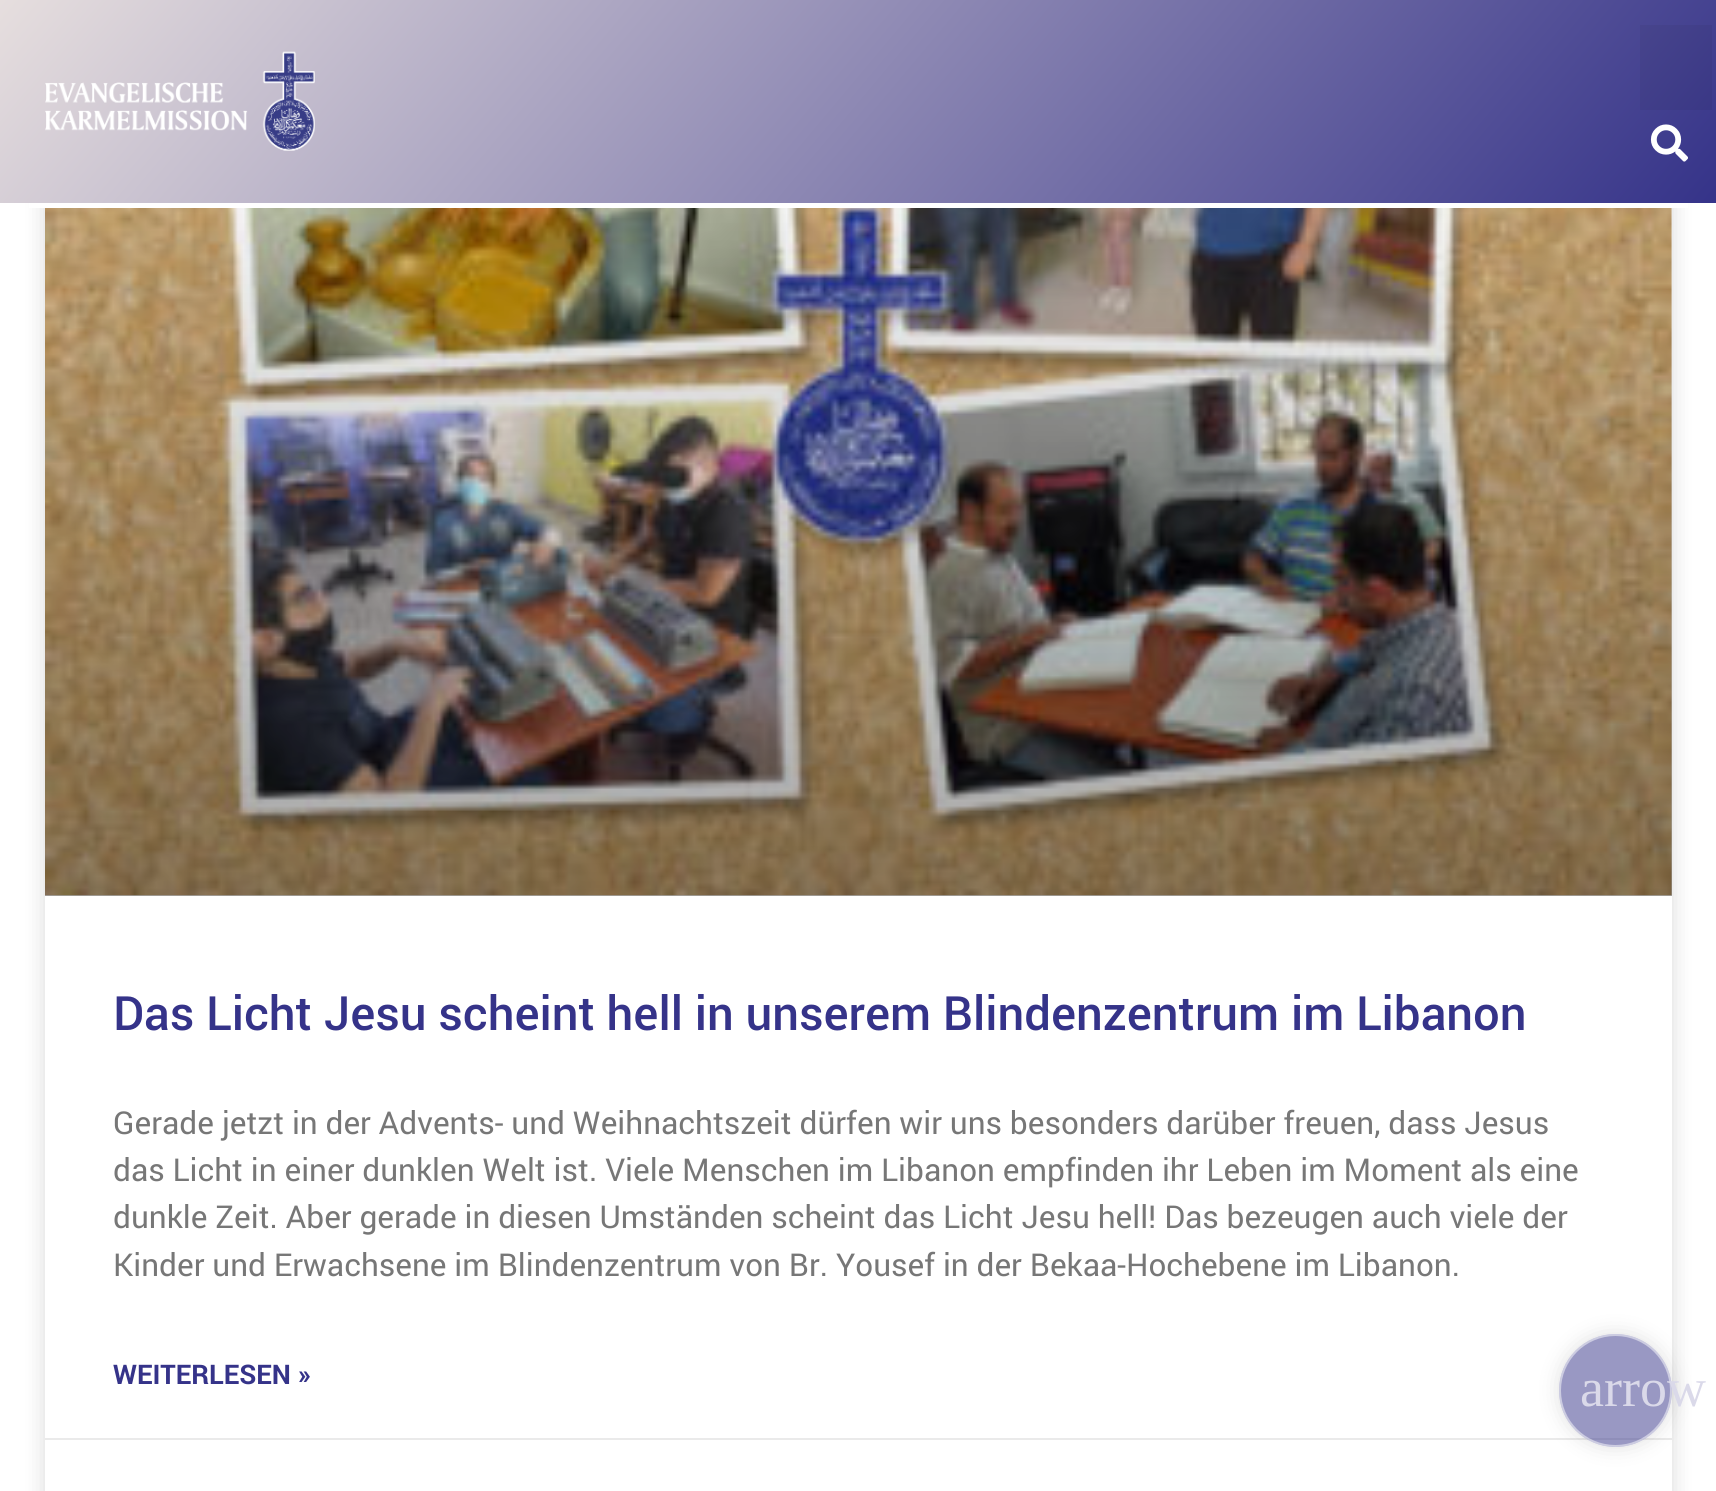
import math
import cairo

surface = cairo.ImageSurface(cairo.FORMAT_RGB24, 1716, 1491)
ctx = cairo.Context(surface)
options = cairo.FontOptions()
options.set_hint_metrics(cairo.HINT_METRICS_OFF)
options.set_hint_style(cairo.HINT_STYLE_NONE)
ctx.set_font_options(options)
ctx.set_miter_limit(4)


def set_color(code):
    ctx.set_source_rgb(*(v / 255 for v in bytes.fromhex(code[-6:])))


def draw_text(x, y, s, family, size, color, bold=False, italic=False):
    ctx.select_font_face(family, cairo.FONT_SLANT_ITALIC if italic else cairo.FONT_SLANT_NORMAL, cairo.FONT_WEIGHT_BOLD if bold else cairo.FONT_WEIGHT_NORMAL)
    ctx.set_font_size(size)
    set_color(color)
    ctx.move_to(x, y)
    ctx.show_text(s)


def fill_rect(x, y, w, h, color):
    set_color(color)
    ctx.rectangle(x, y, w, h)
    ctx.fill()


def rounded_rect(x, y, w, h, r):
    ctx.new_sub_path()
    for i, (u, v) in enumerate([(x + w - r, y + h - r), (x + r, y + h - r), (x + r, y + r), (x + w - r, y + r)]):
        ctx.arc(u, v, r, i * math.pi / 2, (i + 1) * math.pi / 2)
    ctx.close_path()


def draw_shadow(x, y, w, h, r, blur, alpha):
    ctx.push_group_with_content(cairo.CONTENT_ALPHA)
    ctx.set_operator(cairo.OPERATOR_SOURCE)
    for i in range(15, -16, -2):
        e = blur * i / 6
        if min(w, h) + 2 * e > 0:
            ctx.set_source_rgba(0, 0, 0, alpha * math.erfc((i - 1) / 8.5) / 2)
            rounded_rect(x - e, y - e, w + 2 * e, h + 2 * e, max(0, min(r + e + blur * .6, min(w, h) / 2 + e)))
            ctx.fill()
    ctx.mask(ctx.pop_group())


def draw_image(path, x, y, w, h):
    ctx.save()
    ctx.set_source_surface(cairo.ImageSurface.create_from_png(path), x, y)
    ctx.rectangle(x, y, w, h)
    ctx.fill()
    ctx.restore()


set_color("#ffffff")
ctx.paint()
set_color("#000000")
draw_shadow(45, -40, 1627, 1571, 7, 11, 0.15)
gradient = cairo.LinearGradient(305, -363, 1412, 566)
gradient.add_color_stop_rgba(0, 0.902, 0.871, 0.871, 1)
gradient.add_color_stop_rgba(1, 0.208, 0.2, 0.537, 1)
ctx.set_source(gradient)
ctx.rectangle(0, 0, 1716, 203)
ctx.fill()
fill_rect(29, 203, 1659, 5, "#ffffff")
draw_image("assets/img1.png", 45, 51, 270, 100)
ctx.set_source_rgba(0, 0, 0, 0.05)
ctx.rectangle(1640, 25, 72, 85)
ctx.fill()
draw_image("assets/img2.png", 1650, 124, 38, 38)
fill_rect(45, 208, 1627, 1283, "#ffffff")
draw_image("assets/img3.png", 45, 208, 1627, 688)
gradient = cairo.LinearGradient(858, 896, 858, -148)
gradient.add_color_stop_rgba(0, 0, 0, 0, 0.35)
gradient.add_color_stop_rgba(0.75, 0, 0, 0, 0)
ctx.set_source(gradient)
ctx.rectangle(45, 208, 1627, 688)
ctx.fill()
draw_text(113, 1030, "Das Licht Jesu scheint hell in unserem Blindenzentrum im Libanon", "Roboto Medium", 47.25, "#353389")
draw_text(113, 1134, "Gerade jetzt in der Advents- und Weihnachtszeit dürfen wir uns besonders darüber freuen, dass Jesus", "Roboto", 31.5, "#777777")
draw_text(113, 1181, "das Licht in einer dunklen Welt ist. Viele Menschen im Libanon empfinden ihr Leben im Moment als eine", "Roboto", 31.5, "#777777")
draw_text(113, 1228, "dunkle Zeit. Aber gerade in diesen Umständen scheint das Licht Jesu hell! Das bezeugen auch viele der", "Roboto", 31.5, "#777777")
draw_text(113, 1276, "Kinder und Erwachsene im Blindenzentrum von Br. Yousef in der Bekaa-Hochebene im Libanon.", "Roboto", 31.5, "#777777")
draw_text(113, 1384, "WEITERLESEN »", "Roboto", 27, "#353389", bold=True)
fill_rect(45, 1438, 1627, 2, "#eaeaea")
ctx.save()
ctx.set_fill_rule(cairo.FILL_RULE_EVEN_ODD)
ctx.new_path()
ctx.move_to(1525, 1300)
ctx.line_to(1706, 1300)
ctx.line_to(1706, 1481)
ctx.line_to(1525, 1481)
ctx.close_path()
ctx.move_to(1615.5, 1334)
ctx.curve_to(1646.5, 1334, 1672, 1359.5, 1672, 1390.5)
ctx.curve_to(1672, 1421.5, 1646.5, 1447, 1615.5, 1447)
ctx.curve_to(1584.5, 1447, 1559, 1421.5, 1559, 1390.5)
ctx.curve_to(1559, 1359.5, 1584.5, 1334, 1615.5, 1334)
ctx.close_path()
ctx.clip()
set_color("#000000")
draw_shadow(1559, 1334, 113, 113, 56.5, 11, 0.12)
ctx.restore()
ctx.set_source_rgba(0.208, 0.2, 0.537, 0.5)
ctx.arc(1615.5, 1390.5, 56.5, 0, 2 * math.pi)
ctx.fill()
ctx.arc(1615.5, 1390.5, 55.5, 0, 2 * math.pi)
ctx.set_source_rgba(1, 1, 1, 0.5)
ctx.stroke()
draw_text(1580, 1406, "arrow", "Liberation Serif", 54, "#dad9e9")
surface.write_to_png("output.png")
